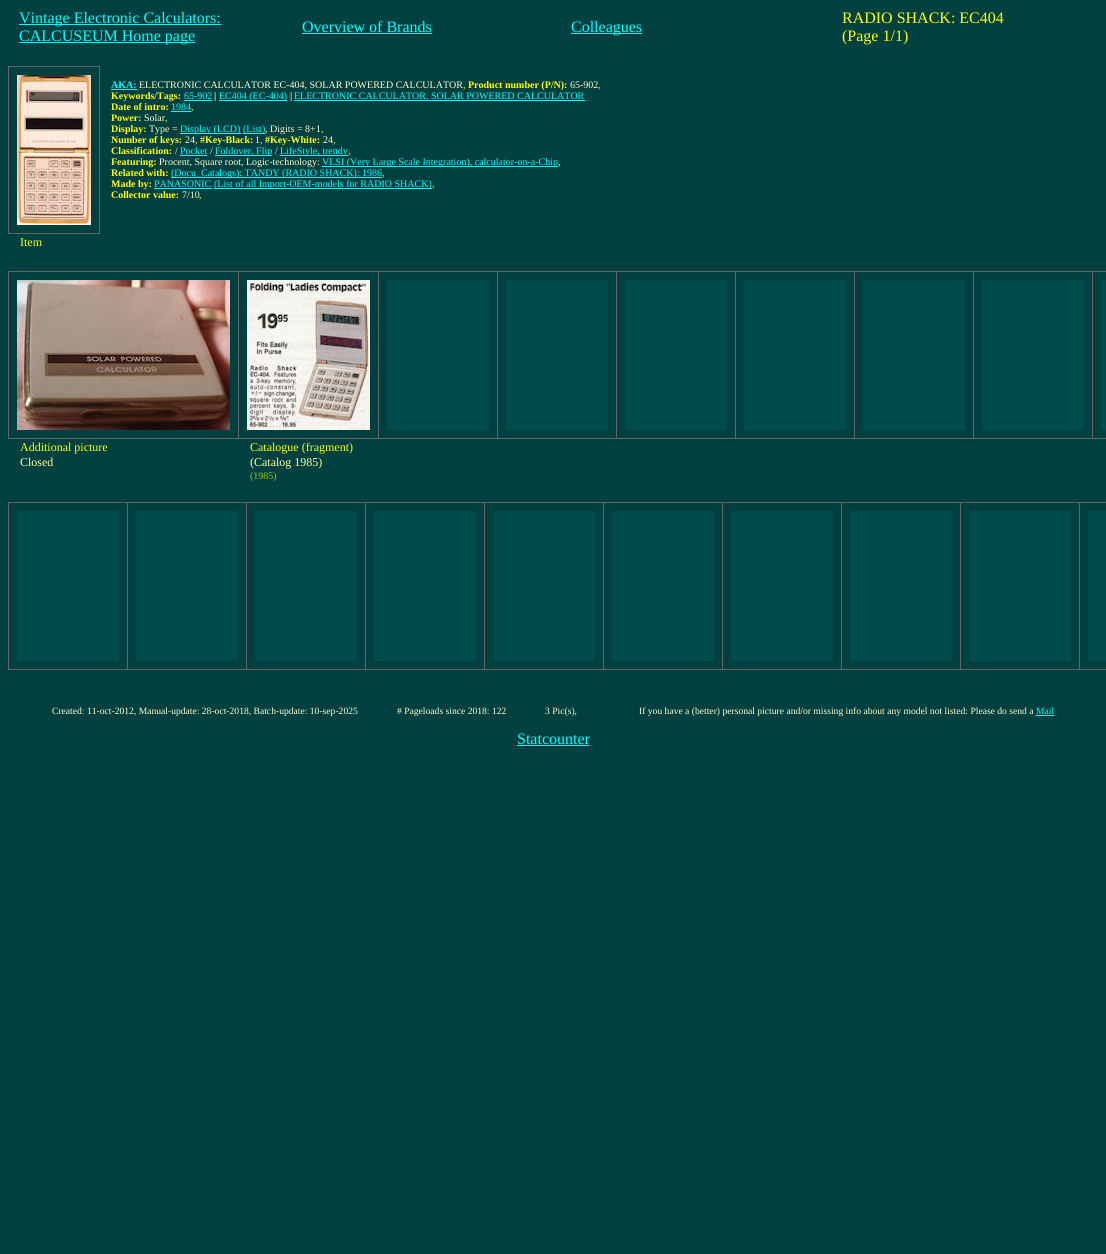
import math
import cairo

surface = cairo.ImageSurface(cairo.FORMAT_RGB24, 1106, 1254)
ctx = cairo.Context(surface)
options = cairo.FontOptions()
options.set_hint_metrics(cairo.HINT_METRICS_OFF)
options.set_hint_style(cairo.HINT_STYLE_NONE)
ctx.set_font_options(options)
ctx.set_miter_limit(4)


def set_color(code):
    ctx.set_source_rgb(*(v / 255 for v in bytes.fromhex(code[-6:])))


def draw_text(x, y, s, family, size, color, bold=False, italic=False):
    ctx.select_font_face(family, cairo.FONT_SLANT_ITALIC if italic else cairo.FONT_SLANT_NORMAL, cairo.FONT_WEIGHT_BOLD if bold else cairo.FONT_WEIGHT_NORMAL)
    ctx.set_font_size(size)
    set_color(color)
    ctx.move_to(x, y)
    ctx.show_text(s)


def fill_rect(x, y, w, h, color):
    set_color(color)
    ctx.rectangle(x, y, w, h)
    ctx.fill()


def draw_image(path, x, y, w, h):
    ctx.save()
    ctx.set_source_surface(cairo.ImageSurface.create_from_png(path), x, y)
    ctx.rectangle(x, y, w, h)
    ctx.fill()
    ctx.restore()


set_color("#004040")
ctx.paint()
fill_rect(19, 24, 202, 1, "#00ffff")
draw_text(19, 23, "Vintage Electronic Calculators:", "Liberation Serif", 16, "#00ffff")
fill_rect(19, 42, 176, 1, "#00ffff")
draw_text(19, 41, "CALCUSEUM Home page", "Liberation Serif", 16, "#00ffff")
draw_text(302, 32, "Overview of Brands", "Liberation Serif", 16, "#00ffff")
fill_rect(302, 33, 130, 1, "#00ffff")
fill_rect(571, 33, 71, 1, "#00ffff")
draw_text(571, 32, "Colleagues", "Liberation Serif", 16, "#00ffff")
draw_text(842, 23, "RADIO SHACK: EC404", "Liberation Serif", 16, "#ffff00")
draw_text(842, 41, "(Page 1/1)", "Liberation Serif", 16, "#ffff00")
fill_rect(8, 66, 92, 1, "#666666")
fill_rect(99, 66, 1, 168, "#666666")
fill_rect(8, 233, 92, 1, "#666666")
fill_rect(8, 66, 1, 168, "#666666")
draw_image("assets/img1.png", 17, 75, 74, 150)
draw_text(111, 88, "AKA:", "Liberation Serif", 10, "#00ffff", bold=True)
fill_rect(111, 89, 26, 1, "#00ffff")
draw_text(139, 88, "ELECTRONIC CALCULATOR EC-404, SOLAR POWERED CALCULATOR", "Liberation Serif", 10, "#ffffcc")
draw_text(463, 88, ",", "Liberation Serif", 10, "#ffff00")
draw_text(468, 88, "Product number (P/N):", "Liberation Serif", 10, "#ffff00", bold=True)
draw_text(570, 88, "65-902", "Liberation Serif", 10, "#ffffcc")
draw_text(598, 88, ",", "Liberation Serif", 10, "#ffff00")
draw_text(111, 99, "Keywords/Tags:", "Liberation Serif", 10, "#ffff00", bold=True)
draw_text(184, 99, "65-902", "Liberation Serif", 10, "#00ffff")
fill_rect(184, 100, 28, 1, "#00ffff")
draw_text(214, 99, "|", "Liberation Serif", 10, "#ffffcc", bold=True)
fill_rect(219, 100, 68, 1, "#00ffff")
draw_text(219, 99, "EC404 (EC-404)", "Liberation Serif", 10, "#00ffff")
draw_text(290, 99, "|", "Liberation Serif", 10, "#ffffcc", bold=True)
fill_rect(294, 100, 291, 1, "#00ffff")
draw_text(294, 99, "ELECTRONIC CALCULATOR, SOLAR POWERED CALCULATOR", "Liberation Serif", 10, "#00ffff")
draw_text(111, 110, "Date of intro:", "Liberation Serif", 10, "#ffff00", bold=True)
draw_text(171, 110, "1984", "Liberation Serif", 10, "#00ffff")
draw_text(191, 110, ",", "Liberation Serif", 10, "#ffff00")
fill_rect(171, 111, 20, 1, "#00ffff")
draw_text(111, 121, "Power:", "Liberation Serif", 10, "#ffff00", bold=True)
draw_text(144, 121, "Solar", "Liberation Serif", 10, "#ffffcc")
draw_text(165, 121, ",", "Liberation Serif", 10, "#ffff00")
draw_text(111, 132, "Display:", "Liberation Serif", 10, "#ffff00", bold=True)
draw_text(149, 132, "Type =", "Liberation Serif", 10, "#ffffcc")
fill_rect(180, 133, 61, 1, "#00ffff")
draw_text(180, 132, "Display (LCD)", "Liberation Serif", 10, "#00ffff")
fill_rect(243, 133, 22, 1, "#00ffff")
draw_text(243, 132, "(List)", "Liberation Serif", 10, "#00ffff")
draw_text(265, 132, ", Digits = 8+1", "Liberation Serif", 10, "#ffffcc")
draw_text(321, 132, ",", "Liberation Serif", 10, "#ffff00")
draw_text(111, 143, "Number of keys:", "Liberation Serif", 10, "#ffff00", bold=True)
draw_text(185, 143, "24", "Liberation Serif", 10, "#ffffcc")
draw_text(200, 143, "#Key-Black:", "Liberation Serif", 10, "#ffff00", bold=True)
draw_text(255, 143, "1", "Liberation Serif", 10, "#ffffcc")
draw_text(265, 143, "#Key-White:", "Liberation Serif", 10, "#ffff00", bold=True)
draw_text(323, 143, "24", "Liberation Serif", 10, "#ffffcc")
draw_text(195, 143, ",", "Liberation Serif", 10, "#ffff00")
draw_text(260, 143, ",", "Liberation Serif", 10, "#ffff00")
draw_text(333, 143, ",", "Liberation Serif", 10, "#ffff00")
draw_text(111, 154, "Classification:", "Liberation Serif", 10, "#ffff00", bold=True)
draw_text(175, 154, "/", "Liberation Serif", 10, "#ffffcc")
draw_text(180, 154, "Pocket", "Liberation Serif", 10, "#00ffff")
fill_rect(180, 155, 27, 1, "#00ffff")
draw_text(210, 154, "/", "Liberation Serif", 10, "#ffffcc")
fill_rect(215, 155, 57, 1, "#00ffff")
draw_text(215, 154, "Foldover, Flip", "Liberation Serif", 10, "#00ffff")
draw_text(275, 154, "/", "Liberation Serif", 10, "#ffffcc")
fill_rect(280, 155, 68, 1, "#00ffff")
draw_text(280, 154, "LifeStyle, trendy", "Liberation Serif", 10, "#00ffff")
draw_text(348, 154, ",", "Liberation Serif", 10, "#ffff00")
draw_text(111, 165, "Featuring:", "Liberation Serif", 10, "#ffff00", bold=True)
draw_text(159, 165, "Procent, Square root, Logic-technology:", "Liberation Serif", 10, "#ffffcc")
fill_rect(322, 166, 236, 1, "#00ffff")
draw_text(322, 165, "VLSI (Very Large Scale Integration), calculator-on-a-Chip", "Liberation Serif", 10, "#00ffff")
draw_text(558, 165, ",", "Liberation Serif", 10, "#ffffcc")
draw_text(111, 176, "Related with:", "Liberation Serif", 10, "#ffff00", bold=True)
fill_rect(171, 177, 211, 1, "#00ffff")
draw_text(171, 176, "(Docu_Catalogs): TANDY (RADIO SHACK): 1986", "Liberation Serif", 10, "#00ffff")
draw_text(382, 176, ",", "Liberation Serif", 10, "#ffff00")
draw_text(111, 187, "Made by:", "Liberation Serif", 10, "#ffff00", bold=True)
draw_text(154, 187, "PANASONIC", "Liberation Serif", 10, "#00ffff")
fill_rect(154, 188, 58, 1, "#00ffff")
fill_rect(214, 188, 218, 1, "#00ffff")
draw_text(214, 187, "(List of all Import-OEM-models for RADIO SHACK)", "Liberation Serif", 10, "#00ffff")
draw_text(432, 187, ",", "Liberation Serif", 10, "#ffff00")
draw_text(111, 198, "Collector value:", "Liberation Serif", 10, "#ffff00", bold=True)
draw_text(182, 198, "7/10", "Liberation Serif", 10, "#ffffcc")
draw_text(199, 198, ",", "Liberation Serif", 10, "#ffff00")
draw_text(20, 246, "Item", "Liberation Serif", 12, "#ffff00")
fill_rect(1092, 271, 14, 1, "#666666")
fill_rect(1092, 438, 14, 1, "#666666")
fill_rect(1092, 271, 1, 168, "#666666")
fill_rect(973, 271, 120, 1, "#666666")
fill_rect(973, 438, 120, 1, "#666666")
fill_rect(973, 271, 1, 168, "#666666")
fill_rect(854, 271, 120, 1, "#666666")
fill_rect(854, 438, 120, 1, "#666666")
fill_rect(854, 271, 1, 168, "#666666")
fill_rect(735, 271, 120, 1, "#666666")
fill_rect(735, 438, 120, 1, "#666666")
fill_rect(735, 271, 1, 168, "#666666")
fill_rect(616, 271, 120, 1, "#666666")
fill_rect(616, 438, 120, 1, "#666666")
fill_rect(616, 271, 1, 168, "#666666")
fill_rect(497, 271, 120, 1, "#666666")
fill_rect(497, 438, 120, 1, "#666666")
fill_rect(497, 271, 1, 168, "#666666")
fill_rect(378, 271, 120, 1, "#666666")
fill_rect(378, 438, 120, 1, "#666666")
fill_rect(378, 271, 1, 168, "#666666")
fill_rect(238, 271, 141, 1, "#666666")
fill_rect(238, 438, 141, 1, "#666666")
fill_rect(238, 271, 1, 168, "#666666")
fill_rect(8, 271, 231, 1, "#666666")
fill_rect(8, 438, 231, 1, "#666666")
fill_rect(8, 271, 1, 168, "#666666")
draw_image("assets/img2.png", 17, 280, 213, 150)
draw_image("assets/img3.png", 247, 280, 123, 150)
fill_rect(387, 280, 102, 150, "#004c4c")
fill_rect(506, 280, 102, 150, "#004c4c")
fill_rect(625, 280, 102, 150, "#004c4c")
fill_rect(744, 280, 102, 150, "#004c4c")
fill_rect(863, 280, 102, 150, "#004c4c")
fill_rect(982, 280, 102, 150, "#004c4c")
fill_rect(1101, 280, 5, 150, "#004c4c")
draw_text(20, 451, "Additional picture", "Liberation Serif", 12, "#ffff00")
draw_text(20, 466, "Closed", "Liberation Serif", 12, "#ffff99")
draw_text(250, 451, "Catalogue (fragment)", "Liberation Serif", 12, "#ffff00")
draw_text(250, 466, "(Catalog 1985)", "Liberation Serif", 12, "#ffff99")
draw_text(250, 479, "(1985)", "Liberation Serif", 10, "#99cc00")
fill_rect(1079, 502, 27, 1, "#666666")
fill_rect(1079, 669, 27, 1, "#666666")
fill_rect(1079, 502, 1, 168, "#666666")
fill_rect(960, 502, 120, 1, "#666666")
fill_rect(960, 669, 120, 1, "#666666")
fill_rect(960, 502, 1, 168, "#666666")
fill_rect(841, 502, 120, 1, "#666666")
fill_rect(841, 669, 120, 1, "#666666")
fill_rect(841, 502, 1, 168, "#666666")
fill_rect(722, 502, 120, 1, "#666666")
fill_rect(722, 669, 120, 1, "#666666")
fill_rect(722, 502, 1, 168, "#666666")
fill_rect(603, 502, 120, 1, "#666666")
fill_rect(603, 669, 120, 1, "#666666")
fill_rect(603, 502, 1, 168, "#666666")
fill_rect(484, 502, 120, 1, "#666666")
fill_rect(484, 669, 120, 1, "#666666")
fill_rect(484, 502, 1, 168, "#666666")
fill_rect(365, 502, 120, 1, "#666666")
fill_rect(365, 669, 120, 1, "#666666")
fill_rect(365, 502, 1, 168, "#666666")
fill_rect(246, 502, 120, 1, "#666666")
fill_rect(246, 669, 120, 1, "#666666")
fill_rect(246, 502, 1, 168, "#666666")
fill_rect(127, 502, 120, 1, "#666666")
fill_rect(127, 669, 120, 1, "#666666")
fill_rect(127, 502, 1, 168, "#666666")
fill_rect(8, 502, 120, 1, "#666666")
fill_rect(8, 669, 120, 1, "#666666")
fill_rect(8, 502, 1, 168, "#666666")
fill_rect(17, 511, 102, 150, "#004c4c")
fill_rect(136, 511, 102, 150, "#004c4c")
fill_rect(255, 511, 102, 150, "#004c4c")
fill_rect(374, 511, 102, 150, "#004c4c")
fill_rect(493, 511, 102, 150, "#004c4c")
fill_rect(612, 511, 102, 150, "#004c4c")
fill_rect(731, 511, 102, 150, "#004c4c")
fill_rect(850, 511, 102, 150, "#004c4c")
fill_rect(969, 511, 102, 150, "#004c4c")
fill_rect(1088, 511, 18, 150, "#004c4c")
draw_text(52, 714, "Created: 11-oct-2012, Manual-update: 28-oct-2018, Batch-update: 10-sep-2025", "Liberation Serif", 9.6, "#ffffcc")
draw_text(397, 714, "# Pageloads since 2018: 122", "Liberation Serif", 9.6, "#ffffcc")
draw_text(545, 714, "3 Pic(s),", "Liberation Serif", 9.6, "#ffffcc")
draw_text(639, 714, "If you have a (better) personal picture and/or missing info about any model not listed: Please do send a", "Liberation Serif", 9.6, "#ffffcc")
draw_text(1036, 714, "Mail", "Liberation Serif", 9.6, "#00ffff")
fill_rect(1036, 715, 18, 1, "#00ffff")
draw_text(517, 744, "Statcounter", "Liberation Serif", 16, "#00ffff")
fill_rect(517, 745, 72, 1, "#00ffff")
surface.write_to_png("output.png")
